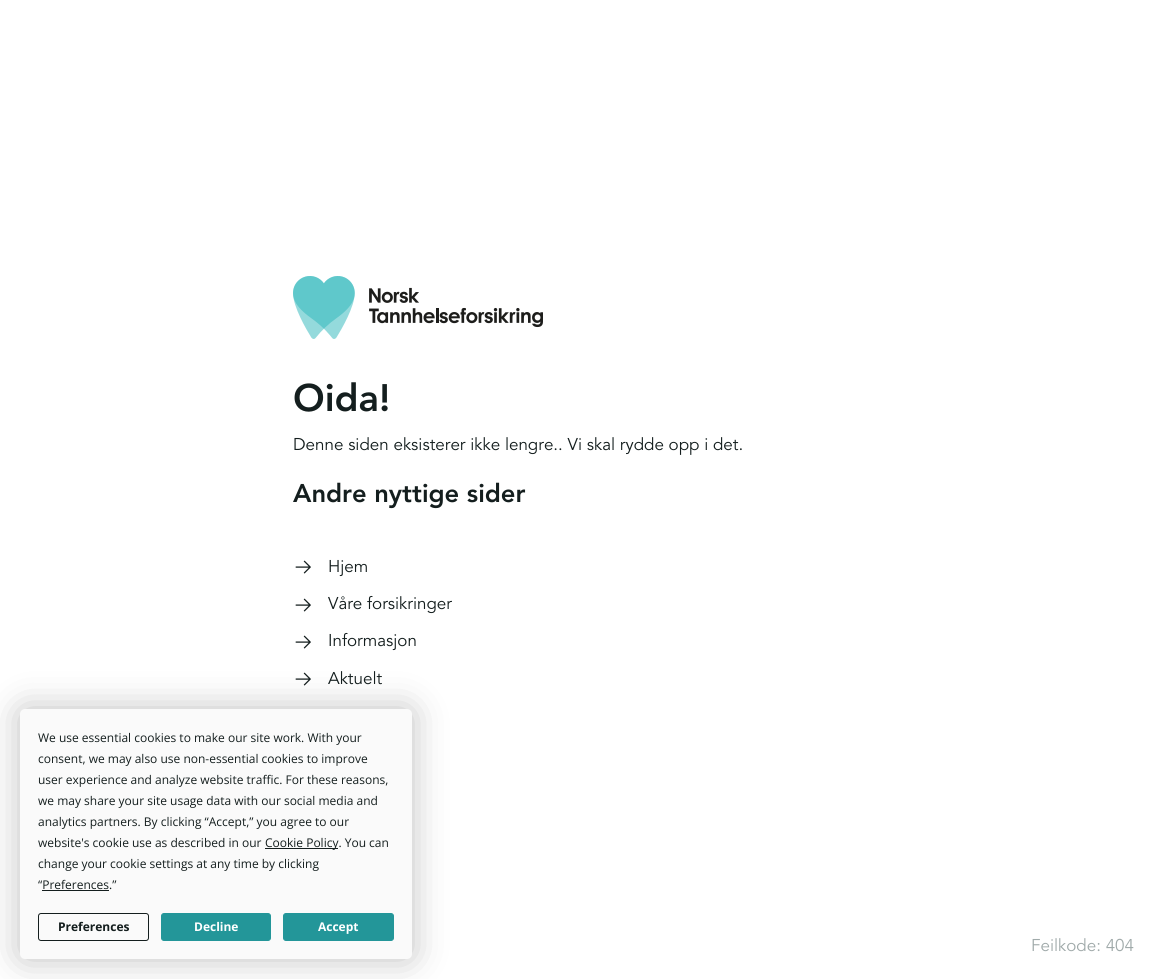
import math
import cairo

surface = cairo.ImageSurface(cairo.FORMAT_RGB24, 1154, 979)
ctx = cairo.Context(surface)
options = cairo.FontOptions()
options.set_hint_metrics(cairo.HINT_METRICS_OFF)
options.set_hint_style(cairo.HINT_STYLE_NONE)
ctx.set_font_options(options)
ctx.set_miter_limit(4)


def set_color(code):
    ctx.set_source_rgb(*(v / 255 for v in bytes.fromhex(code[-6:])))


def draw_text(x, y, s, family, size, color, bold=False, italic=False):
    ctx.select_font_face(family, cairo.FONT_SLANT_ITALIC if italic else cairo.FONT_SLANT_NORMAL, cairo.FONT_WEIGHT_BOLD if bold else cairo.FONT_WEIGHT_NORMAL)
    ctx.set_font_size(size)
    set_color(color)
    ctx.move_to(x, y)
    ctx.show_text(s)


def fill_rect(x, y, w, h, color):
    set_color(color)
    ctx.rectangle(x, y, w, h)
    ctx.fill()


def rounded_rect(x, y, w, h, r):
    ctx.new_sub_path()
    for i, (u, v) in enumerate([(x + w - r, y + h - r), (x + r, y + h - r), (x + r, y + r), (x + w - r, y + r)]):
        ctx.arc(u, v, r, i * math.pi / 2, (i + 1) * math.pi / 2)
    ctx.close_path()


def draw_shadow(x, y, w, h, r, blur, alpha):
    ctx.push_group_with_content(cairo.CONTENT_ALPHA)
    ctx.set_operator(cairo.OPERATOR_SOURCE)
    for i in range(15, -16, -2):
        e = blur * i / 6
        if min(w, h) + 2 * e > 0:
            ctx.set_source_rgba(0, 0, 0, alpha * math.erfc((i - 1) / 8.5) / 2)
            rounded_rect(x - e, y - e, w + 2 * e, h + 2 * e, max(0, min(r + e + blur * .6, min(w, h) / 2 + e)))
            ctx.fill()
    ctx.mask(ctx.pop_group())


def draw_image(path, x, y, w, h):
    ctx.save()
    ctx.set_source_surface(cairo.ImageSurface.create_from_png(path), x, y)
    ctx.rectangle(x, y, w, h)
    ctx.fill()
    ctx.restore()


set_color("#ffffff")
ctx.paint()
draw_image("assets/img2.png", 295, 672, 16, 14)
set_color("#000000")
draw_shadow(20, 709, 392, 250, 5, 17.5, 0.25)
set_color("#fafafa")
rounded_rect(20, 709, 392, 250, 5)
ctx.fill()
draw_text(38, 742, "We use essential cookies to make our site work. With your", "Open Sans", 12, "#141e1e")
draw_text(38, 763, "consent, we may also use non-essential cookies to improve", "Open Sans", 12, "#141e1e")
draw_text(38, 784, "user experience and analyze website traffic. For these reasons,", "Open Sans", 12, "#141e1e")
draw_text(38, 805, "we may share your site usage data with our social media and", "Open Sans", 12, "#141e1e")
draw_text(38, 826, "analytics partners. By clicking “Accept,” you agree to our", "Open Sans", 12, "#141e1e")
draw_text(38, 847, "website's cookie use as described in our", "Open Sans", 12, "#141e1e")
fill_rect(265, 848, 73, 1, "#141e1e")
draw_text(265, 847, "Cookie Policy. You can", "Open Sans", 12, "#141e1e")
draw_text(38, 868, "change your cookie settings at any time by clicking", "Open Sans", 12, "#141e1e")
draw_text(38, 889, "“Preferences.”", "Open Sans", 12, "#141e1e")
fill_rect(42, 890, 67, 1, "#141e1e")
rounded_rect(38.5, 913.5, 110, 27, 2.5)
ctx.set_line_width(1)
ctx.stroke()
draw_text(58, 931, "Preferences", "Open Sans", 12, "#141e1e", bold=True)
set_color("#239699")
rounded_rect(161.5, 913.5, 109, 27, 2.5)
ctx.fill_preserve()
ctx.stroke()
draw_text(194, 931, "Decline", "Open Sans", 12, "#ffffff", bold=True)
set_color("#239699")
rounded_rect(283.5, 913.5, 110, 27, 2.5)
ctx.fill_preserve()
ctx.stroke()
draw_text(318, 931, "Accept", "Open Sans", 12, "#ffffff", bold=True)
draw_image("assets/img1.png", 293, 276, 250, 63)
draw_text(293, 411, "Oida!", "Avenir Black", 38, "#141e1e")
draw_text(293, 450, "Denne siden eksisterer ikke lengre.. Vi skal rydde opp i det.", "Avenir", 17, "#141e1e")
draw_text(1031, 951, "Feilkode: 404", "Avenir", 17, "#a0aaaa")
draw_text(293, 502, "Andre nyttige sider", "Avenir Black", 25.5, "#141e1e")
draw_image("assets/img2.png", 295, 560, 16, 14)
draw_text(328, 572, "Hjem", "Avenir", 17, "#141e1e")
draw_image("assets/img2.png", 295, 598, 16, 14)
draw_text(328, 609, "Våre forsikringer", "Avenir", 17, "#141e1e")
draw_image("assets/img2.png", 295, 635, 16, 14)
draw_text(328, 646, "Informasjon", "Avenir", 17, "#141e1e")
draw_text(328, 684, "Aktuelt", "Avenir", 17, "#141e1e")
surface.write_to_png("output.png")
